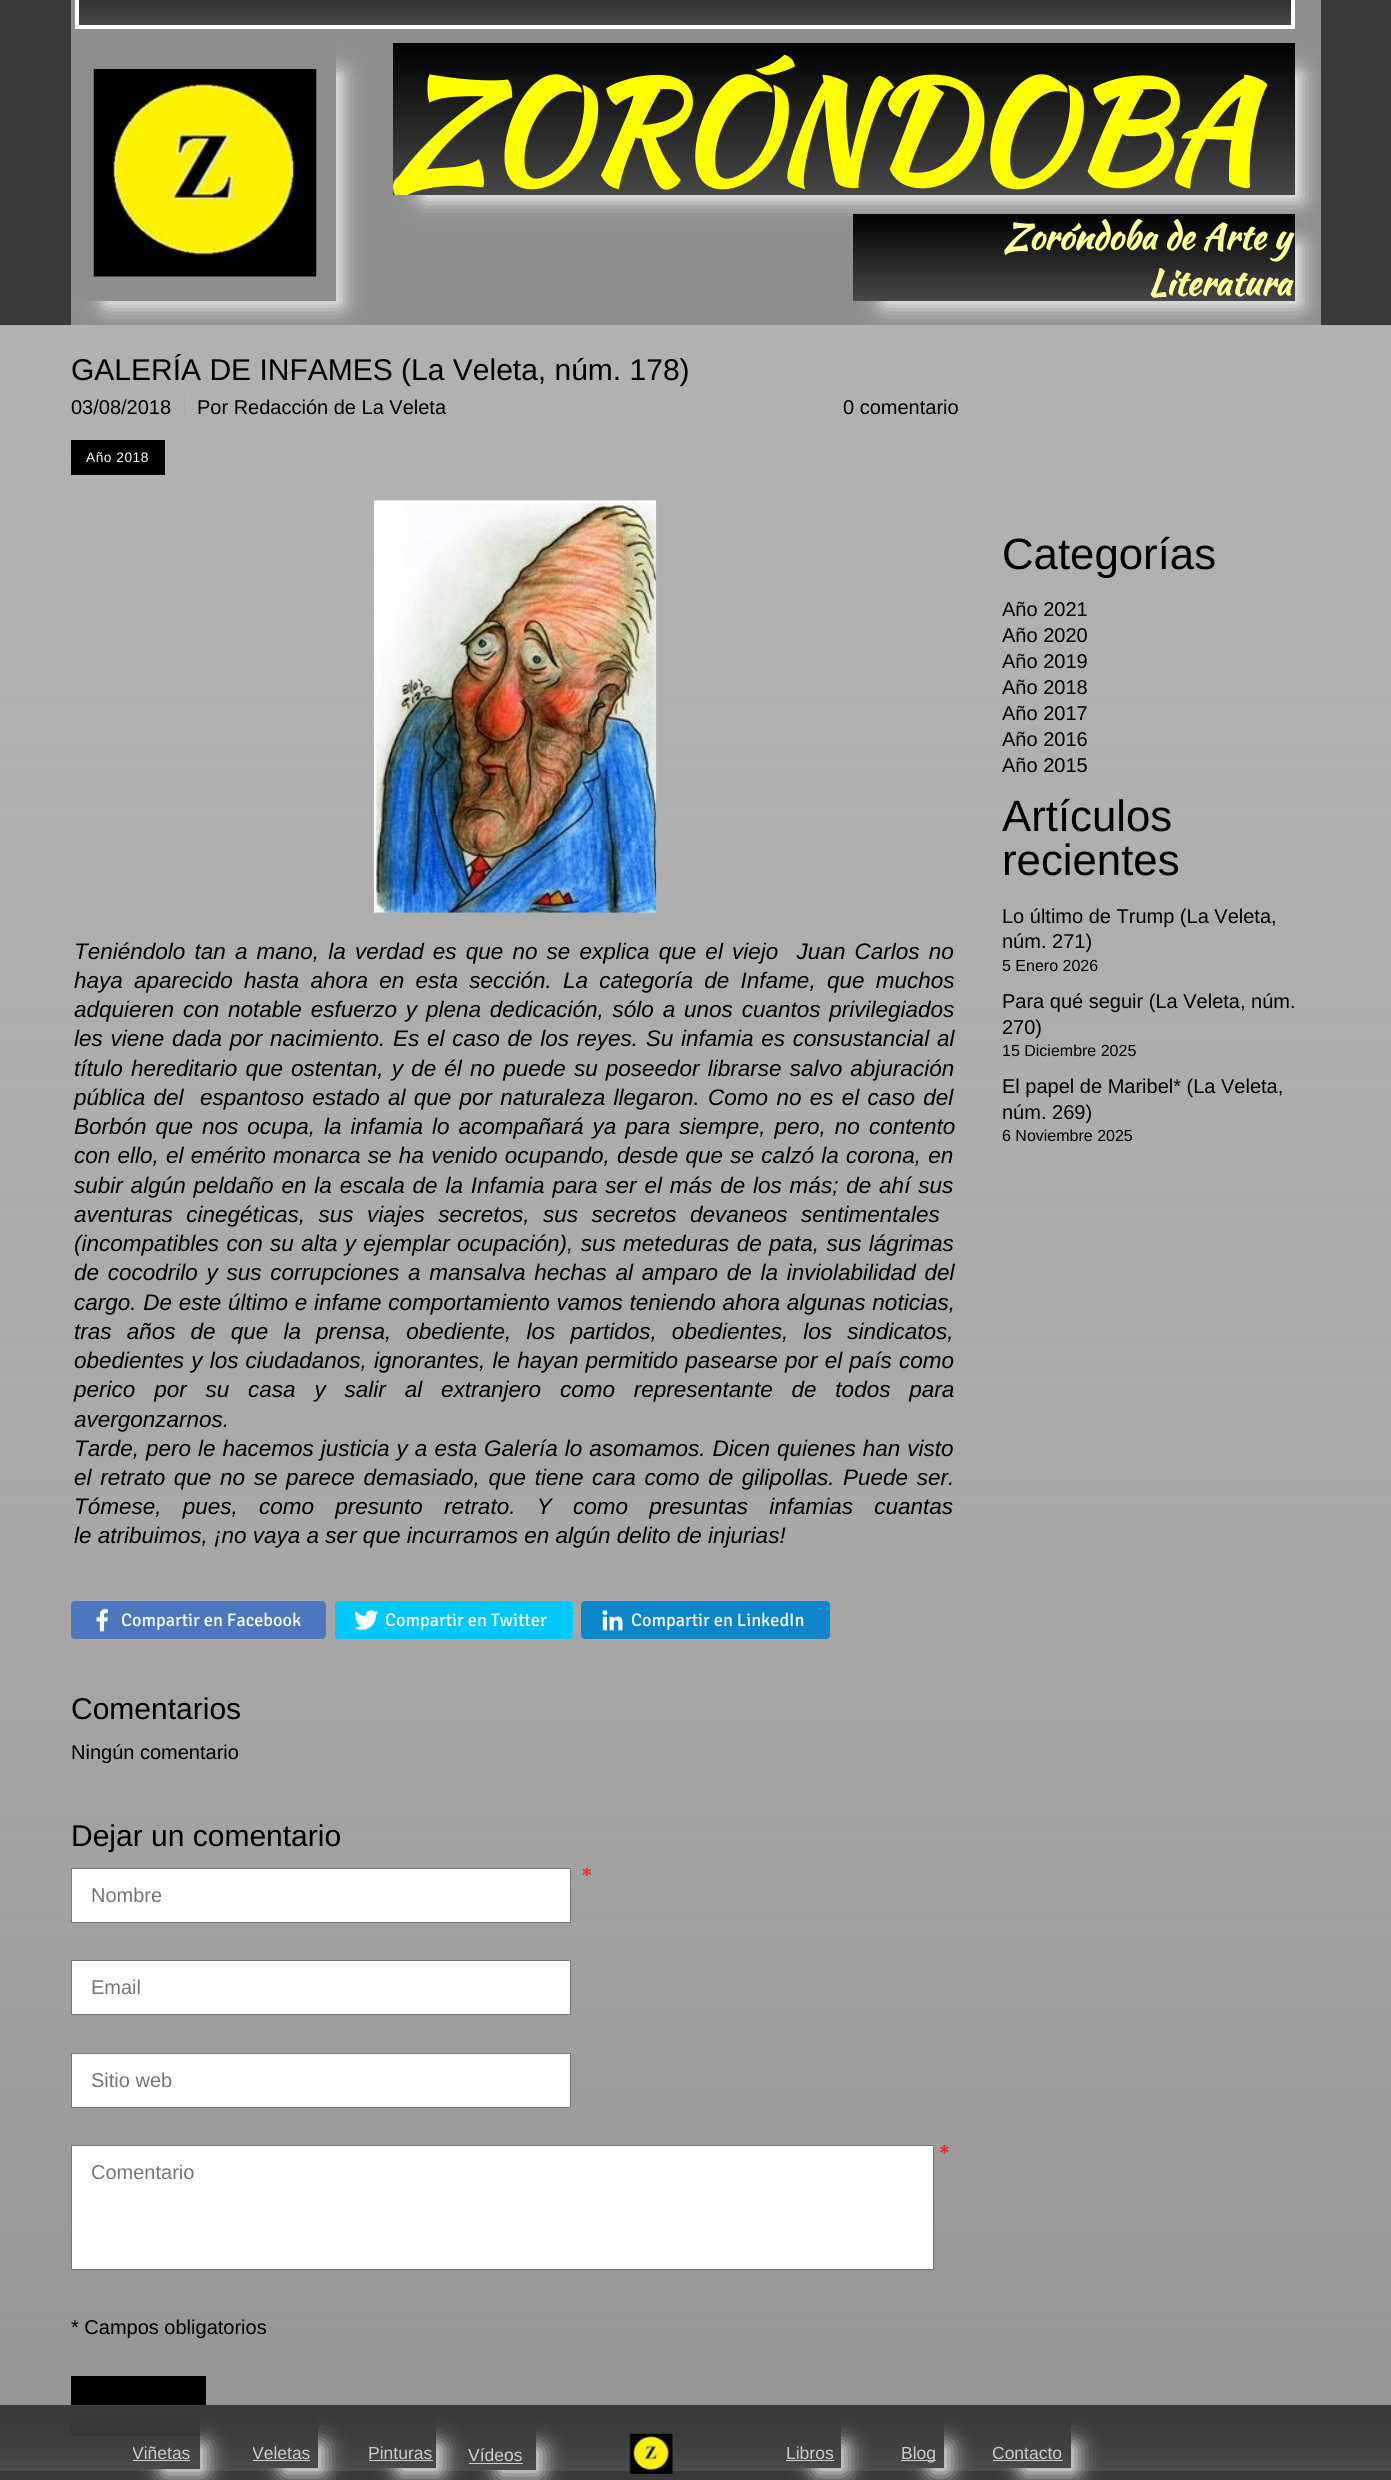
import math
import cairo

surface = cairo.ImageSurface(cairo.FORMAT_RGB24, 1391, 2480)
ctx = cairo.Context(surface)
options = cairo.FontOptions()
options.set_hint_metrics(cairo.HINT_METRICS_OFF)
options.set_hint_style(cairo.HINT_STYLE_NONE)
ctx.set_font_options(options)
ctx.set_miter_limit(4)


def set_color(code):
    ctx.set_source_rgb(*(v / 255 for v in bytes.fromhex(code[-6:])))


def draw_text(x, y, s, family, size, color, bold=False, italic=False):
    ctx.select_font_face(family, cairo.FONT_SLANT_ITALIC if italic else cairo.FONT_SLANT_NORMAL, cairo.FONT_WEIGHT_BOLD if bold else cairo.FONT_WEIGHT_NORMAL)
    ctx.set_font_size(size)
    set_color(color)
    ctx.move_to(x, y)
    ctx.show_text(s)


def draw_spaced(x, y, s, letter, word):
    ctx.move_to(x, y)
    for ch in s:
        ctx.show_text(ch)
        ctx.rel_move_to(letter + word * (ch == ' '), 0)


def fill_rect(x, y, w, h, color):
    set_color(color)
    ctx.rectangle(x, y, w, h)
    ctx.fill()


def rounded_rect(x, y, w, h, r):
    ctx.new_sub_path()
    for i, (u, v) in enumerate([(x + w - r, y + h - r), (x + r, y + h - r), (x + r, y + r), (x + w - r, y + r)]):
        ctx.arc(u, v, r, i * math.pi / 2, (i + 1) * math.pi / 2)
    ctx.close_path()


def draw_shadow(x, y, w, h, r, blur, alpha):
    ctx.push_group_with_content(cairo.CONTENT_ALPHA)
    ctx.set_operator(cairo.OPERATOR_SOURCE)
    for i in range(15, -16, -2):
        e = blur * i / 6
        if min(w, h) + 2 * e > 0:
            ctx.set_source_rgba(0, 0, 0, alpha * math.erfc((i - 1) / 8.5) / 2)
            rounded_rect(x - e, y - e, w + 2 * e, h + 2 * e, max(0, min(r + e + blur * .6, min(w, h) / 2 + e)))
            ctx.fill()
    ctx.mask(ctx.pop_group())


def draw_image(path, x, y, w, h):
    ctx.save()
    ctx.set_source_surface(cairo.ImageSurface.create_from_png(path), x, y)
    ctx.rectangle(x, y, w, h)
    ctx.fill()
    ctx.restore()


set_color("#3a3a3a")
ctx.paint()
fill_rect(71, 0, 1250, 325, "#8e8e8e")
gradient = cairo.LinearGradient(685, -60, 685, 25)
gradient.add_color_stop_rgba(0, 0, 0, 0, 1)
gradient.add_color_stop_rgba(1, 0.278, 0.278, 0.278, 1)
ctx.set_source(gradient)
ctx.rectangle(79, 0, 1212, 25)
ctx.fill()
ctx.rectangle(77, -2, 1216, 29)
set_color("#ffffff")
ctx.set_line_width(4)
ctx.stroke()
ctx.save()
ctx.set_fill_rule(cairo.FILL_RULE_EVEN_ODD)
ctx.new_path()
ctx.move_to(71, 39)
ctx.line_to(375, 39)
ctx.line_to(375, 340)
ctx.line_to(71, 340)
ctx.close_path()
ctx.move_to(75, 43)
ctx.line_to(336, 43)
ctx.line_to(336, 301)
ctx.line_to(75, 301)
ctx.close_path()
ctx.clip()
set_color("#ffffff")
draw_shadow(105, 73, 236, 233, 0, 11, 1)
ctx.restore()
draw_image("assets/img1.png", 93, 69, 224, 208)
ctx.save()
ctx.rectangle(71, 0, 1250, 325)
ctx.clip()
set_color("#ffffff")
draw_shadow(423, 73, 877, 127, 0, 11, 1)
ctx.restore()
gradient = cairo.LinearGradient(844, 42, 844, 195)
gradient.add_color_stop_rgba(0, 0, 0, 0, 1)
gradient.add_color_stop_rgba(1, 0.278, 0.278, 0.278, 1)
ctx.set_source(gradient)
ctx.rectangle(393, 43, 902, 152)
ctx.fill()
ctx.save()
ctx.rectangle(393, 43, 902, 152)
ctx.clip()
draw_text(392, 178, "ZORÓNDOBA", "Kaushan Script", 135, "#ffff00", bold=True)
ctx.restore()
ctx.save()
ctx.rectangle(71, 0, 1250, 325)
ctx.clip()
ctx.set_fill_rule(cairo.FILL_RULE_EVEN_ODD)
ctx.new_path()
ctx.move_to(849, 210)
ctx.line_to(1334, 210)
ctx.line_to(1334, 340)
ctx.line_to(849, 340)
ctx.close_path()
ctx.move_to(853, 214)
ctx.line_to(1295, 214)
ctx.line_to(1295, 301)
ctx.line_to(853, 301)
ctx.close_path()
ctx.clip()
set_color("#ffffff")
draw_shadow(883, 244, 417, 62, 0, 11, 1)
ctx.restore()
gradient = cairo.LinearGradient(1074, 214, 1074, 301)
gradient.add_color_stop_rgba(0, 0, 0, 0, 1)
gradient.add_color_stop_rgba(1, 0, 0, 0, 0.5)
ctx.set_source(gradient)
ctx.rectangle(853, 214, 442, 87)
ctx.fill()
draw_text(1004, 249, "Zoróndoba de Arte y", "Kaushan Script", 35, "#ffff99", bold=True)
draw_text(1148, 295, "Literatura", "Kaushan Script", 35, "#ffff99", bold=True)
gradient = cairo.LinearGradient(696, 325, 696, 2471)
gradient.add_color_stop_rgba(0, 0.694, 0.694, 0.694, 1)
gradient.add_color_stop_rgba(1, 0.463, 0.463, 0.463, 1)
ctx.set_source(gradient)
ctx.rectangle(0, 350, 1391, 2121)
ctx.fill()
gradient = cairo.LinearGradient(696, 325, 696, 2471)
gradient.add_color_stop_rgba(0, 0.694, 0.694, 0.694, 1)
gradient.add_color_stop_rgba(1, 0.694, 0.694, 0.694, 0.5)
ctx.set_source(gradient)
ctx.rectangle(0, 325, 1391, 2146)
ctx.fill()
draw_text(71, 380, "GALERÍA DE INFAMES (La Veleta, núm. 178)", "Liberation Sans", 30, "#000000")
draw_text(71, 414, "03/08/2018", "Liberation Sans", 20, "#000000")
draw_text(197, 414, "Por Redacción de La Veleta", "Liberation Sans", 20, "#000000")
fill_rect(184, 396, 1, 22, "#aaaaaa")
draw_text(843, 414, "0 comentario", "Liberation Sans", 20, "#000000")
fill_rect(71, 440, 94, 35, "#000000")
ctx.set_font_size(13.75)
set_color("#ffffff")
draw_spaced(86, 462, "Año 2018", 0.5, 0)
draw_image("assets/img2.png", 373, 500, 284, 413)
ctx.select_font_face("Liberation Sans", cairo.FONT_SLANT_ITALIC)
ctx.set_font_size(22.5)
set_color("#000000")
draw_spaced(74, 959, "Teniéndolo tan a mano, la verdad es que no se explica que el viejo  Juan Carlos no", 0, 2.9)
draw_spaced(74, 988, "haya aparecido hasta ahora en esta sección. La categoría de Infame, que muchos", 0, 5)
draw_spaced(74, 1017, "adquieren con notable esfuerzo y plena dedicación, sólo a unos cuantos privilegiados", 0, 2.6)
draw_spaced(74, 1046, "les viene dada por nacimiento. Es el caso de los reyes. Su infamia es consustancial al", 0, 1.5)
draw_spaced(74, 1076, "título hereditario que ostentan, y de él no puede su poseedor librarse salvo abjuración", 0, 1.9)
draw_spaced(74, 1105, "pública del  espantoso estado al que por naturaleza llegaron. Como no es el caso del", 0, 2)
draw_spaced(74, 1134, "Borbón que nos ocupa, la infamia lo acompañará ya para siempre, pero, no contento", 0, 2.75)
draw_spaced(74, 1163, "con ello, el emérito monarca se ha venido ocupando, desde que se calzó la corona, en", 0, 1)
draw_spaced(74, 1193, "subir algún peldaño en la escala de la Infamia para ser el más de los más; de ahí sus", 0, 1.6)
draw_spaced(74, 1222, "aventuras cinegéticas, sus viajes secretos, sus secretos devaneos sentimentales", 0, 7.25)
draw_spaced(74, 1251, "(incompatibles con su alta y ejemplar ocupación), sus meteduras de pata, sus lágrimas", 0, 1.1)
draw_spaced(74, 1280, "de cocodrilo y sus corrupciones a mansalva hechas al amparo de la inviolabilidad del", 0, 2.5)
draw_spaced(74, 1310, "cargo. De este último e infame comportamiento vamos teniendo ahora algunas noticias,", 0, 0.5)
draw_spaced(74, 1339, "tras años de que la prensa, obediente, los partidos, obedientes, los sindicatos,", 0, 8.9)
draw_spaced(74, 1368, "obedientes y los ciudadanos, ignorantes, le hayan permitido pasearse por el país como", 0, 0.9)
draw_spaced(74, 1397, "perico por su casa y salir al extranjero como representante de todos para", 0, 12.6)
draw_text(74, 1427, "avergonzarnos.", "Liberation Sans", 22.5, "#000000", italic=True)
draw_spaced(74, 1456, "Tarde, pero le hacemos justicia y a esta Galería lo asomamos. Dicen quienes han visto", 0, 0.75)
draw_spaced(74, 1485, "el retrato que no se parece demasiado, que tiene cara como de gilipollas. Puede ser.", 0, 2.4)
draw_spaced(74, 1514, "Tómese, pues, como presunto retrato. Y como presuntas infamias cuantas", 0, 15)
draw_text(74, 1543, "le atribuimos, ¡no vaya a ser que incurramos en algún delito de injurias!", "Liberation Sans", 22.5, "#000000", italic=True)
set_color("#4c76be")
rounded_rect(71, 1601, 255, 38, 4)
ctx.fill()
draw_image("assets/img3.png", 96, 1608, 12, 24)
draw_text(121, 1626, "Compartir en Facebook", "Signika Light", 18.25, "#ffffff")
set_color("#00c7ff")
rounded_rect(335, 1601, 238, 38, 4)
ctx.fill()
draw_image("assets/img4.png", 354, 1609, 25, 21)
draw_text(385, 1626, "Compartir en Twitter", "Signika Light", 18.25, "#ffffff")
set_color("#0b86ca")
rounded_rect(581, 1601, 249, 38, 4)
ctx.fill()
draw_image("assets/img5.png", 602, 1609, 21, 22)
draw_text(631, 1626, "Compartir en LinkedIn", "Signika Light", 18.25, "#ffffff")
draw_text(71, 1719, "Comentarios", "Liberation Sans", 30, "#000000")
draw_text(71, 1759, "Ningún comentario", "Liberation Sans", 20, "#000000")
draw_text(71, 1846, "Dejar un comentario", "Liberation Sans", 30, "#000000")
draw_image("assets/img6.png", 583, 1868, 8, 8)
set_color("#ffffff")
ctx.rectangle(71.5, 1868.5, 499, 54)
ctx.fill_preserve()
set_color("#777777")
ctx.set_line_width(1)
ctx.stroke()
draw_text(91, 1902, "Nombre", "Liberation Sans", 20, "#757575")
set_color("#ffffff")
ctx.rectangle(71.5, 1960.5, 499, 54)
ctx.fill_preserve()
set_color("#777777")
ctx.stroke()
draw_text(91, 1994, "Email", "Liberation Sans", 20, "#757575")
set_color("#ffffff")
ctx.rectangle(71.5, 2053.5, 499, 54)
ctx.fill_preserve()
set_color("#777777")
ctx.stroke()
draw_text(91, 2087, "Sitio web", "Liberation Sans", 20, "#757575")
draw_image("assets/img7.png", 940, 2145, 9, 9)
set_color("#ffffff")
ctx.rectangle(71.5, 2145.5, 862, 124)
ctx.fill_preserve()
set_color("#777777")
ctx.stroke()
draw_text(91, 2179, "Comentario", "Liberation Sans", 20, "#757575")
draw_text(71, 2334, "* Campos obligatorios", "Liberation Sans", 20, "#000000")
fill_rect(71, 2376, 135, 60, "#000000")
draw_text(1002, 569, "Categorías", "Liberation Sans", 43.75, "#000000")
draw_text(1002, 616, "Año 2021", "Liberation Sans", 20, "#000000")
draw_text(1002, 642, "Año 2020", "Liberation Sans", 20, "#000000")
draw_text(1002, 668, "Año 2019", "Liberation Sans", 20, "#000000")
draw_text(1002, 694, "Año 2018", "Liberation Sans", 20, "#000000")
draw_text(1002, 720, "Año 2017", "Liberation Sans", 20, "#000000")
draw_text(1002, 746, "Año 2016", "Liberation Sans", 20, "#000000")
draw_text(1002, 772, "Año 2015", "Liberation Sans", 20, "#000000")
draw_text(1002, 831, "Artículos", "Liberation Sans", 43.75, "#000000")
draw_text(1002, 875, "recientes", "Liberation Sans", 43.75, "#000000")
draw_text(1002, 923, "Lo último de Trump (La Veleta,", "Liberation Sans", 20, "#000000")
draw_text(1002, 948, "núm. 271)", "Liberation Sans", 20, "#000000")
draw_text(1002, 971, "5 Enero 2026", "Liberation Sans", 16, "#000000")
draw_text(1002, 1008, "Para qué seguir (La Veleta, núm.", "Liberation Sans", 20, "#000000")
draw_text(1002, 1034, "270)", "Liberation Sans", 20, "#000000")
draw_text(1002, 1056, "15 Diciembre 2025", "Liberation Sans", 16, "#000000")
draw_text(1002, 1093, "El papel de Maribel* (La Veleta,", "Liberation Sans", 20, "#000000")
draw_text(1002, 1119, "núm. 269)", "Liberation Sans", 20, "#000000")
draw_text(1002, 1141, "6 Noviembre 2025", "Liberation Sans", 16, "#000000")
gradient = cairo.LinearGradient(696, 2405, 696, 2480)
gradient.add_color_stop_rgba(0, 0.227, 0.227, 0.227, 1)
gradient.add_color_stop_rgba(1, 0.227, 0.227, 0.227, 0.5)
ctx.set_source(gradient)
ctx.rectangle(0, 2406, 1391, 65)
ctx.fill()
ctx.rectangle(0, 2405, 1391, 66)
ctx.fill()
ctx.save()
ctx.set_fill_rule(cairo.FILL_RULE_EVEN_ODD)
ctx.new_path()
ctx.move_to(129, 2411)
ctx.line_to(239, 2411)
ctx.line_to(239, 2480)
ctx.line_to(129, 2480)
ctx.close_path()
ctx.move_to(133, 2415)
ctx.line_to(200, 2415)
ctx.line_to(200, 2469)
ctx.line_to(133, 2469)
ctx.close_path()
ctx.clip()
set_color("#ffffff")
draw_shadow(163, 2445, 42, 29, 0, 11, 1)
ctx.restore()
ctx.save()
ctx.rectangle(133, 2415, 67, 54)
ctx.clip()
draw_text(132, 2459, "Viñetas", "Liberation Sans", 17.5, "#cccccc")
ctx.restore()
fill_rect(133, 2460, 57, 1, "#cccccc")
ctx.save()
ctx.set_fill_rule(cairo.FILL_RULE_EVEN_ODD)
ctx.new_path()
ctx.move_to(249, 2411)
ctx.line_to(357, 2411)
ctx.line_to(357, 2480)
ctx.line_to(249, 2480)
ctx.close_path()
ctx.move_to(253, 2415)
ctx.line_to(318, 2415)
ctx.line_to(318, 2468)
ctx.line_to(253, 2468)
ctx.close_path()
ctx.clip()
set_color("#ffffff")
draw_shadow(283, 2445, 40, 28, 0, 11, 1)
ctx.restore()
ctx.save()
ctx.rectangle(253, 2415, 65, 53)
ctx.clip()
draw_text(252, 2459, "Veletas", "Liberation Sans", 17.5, "#cccccc")
ctx.restore()
fill_rect(253, 2460, 57, 1, "#cccccc")
ctx.save()
ctx.set_fill_rule(cairo.FILL_RULE_EVEN_ODD)
ctx.new_path()
ctx.move_to(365, 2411)
ctx.line_to(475, 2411)
ctx.line_to(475, 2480)
ctx.line_to(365, 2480)
ctx.close_path()
ctx.move_to(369, 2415)
ctx.line_to(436, 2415)
ctx.line_to(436, 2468)
ctx.line_to(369, 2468)
ctx.close_path()
ctx.clip()
set_color("#ffffff")
draw_shadow(399, 2445, 42, 28, 0, 11, 1)
ctx.restore()
draw_text(368, 2459, "Pinturas", "Liberation Sans", 17.5, "#cccccc")
fill_rect(369, 2460, 64, 1, "#cccccc")
ctx.save()
ctx.set_fill_rule(cairo.FILL_RULE_EVEN_ODD)
ctx.new_path()
ctx.move_to(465, 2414)
ctx.line_to(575, 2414)
ctx.line_to(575, 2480)
ctx.line_to(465, 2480)
ctx.close_path()
ctx.move_to(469, 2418)
ctx.line_to(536, 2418)
ctx.line_to(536, 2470)
ctx.line_to(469, 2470)
ctx.close_path()
ctx.clip()
set_color("#ffffff")
draw_shadow(499, 2448, 42, 27, 0, 11, 1)
ctx.restore()
draw_text(468, 2461, "Vídeos", "Liberation Sans", 17.5, "#cccccc")
fill_rect(469, 2463, 54, 1, "#cccccc")
draw_image("assets/img8.png", 629, 2433, 44, 41)
ctx.save()
ctx.set_fill_rule(cairo.FILL_RULE_EVEN_ODD)
ctx.new_path()
ctx.move_to(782, 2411)
ctx.line_to(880, 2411)
ctx.line_to(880, 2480)
ctx.line_to(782, 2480)
ctx.close_path()
ctx.move_to(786, 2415)
ctx.line_to(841, 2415)
ctx.line_to(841, 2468)
ctx.line_to(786, 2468)
ctx.close_path()
ctx.clip()
set_color("#ffffff")
draw_shadow(816, 2445, 30, 28, 0, 11, 1)
ctx.restore()
draw_text(786, 2459, "Libros", "Liberation Sans", 17.5, "#cccccc")
fill_rect(786, 2460, 48, 1, "#cccccc")
ctx.save()
ctx.set_fill_rule(cairo.FILL_RULE_EVEN_ODD)
ctx.new_path()
ctx.move_to(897, 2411)
ctx.line_to(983, 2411)
ctx.line_to(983, 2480)
ctx.line_to(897, 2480)
ctx.close_path()
ctx.move_to(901, 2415)
ctx.line_to(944, 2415)
ctx.line_to(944, 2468)
ctx.line_to(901, 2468)
ctx.close_path()
ctx.clip()
set_color("#ffffff")
draw_shadow(931, 2445, 18, 28, 0, 11, 1)
ctx.restore()
fill_rect(901, 2460, 35, 1, "#cccccc")
draw_text(901, 2459, "Blog", "Liberation Sans", 17.5, "#cccccc")
ctx.save()
ctx.set_fill_rule(cairo.FILL_RULE_EVEN_ODD)
ctx.new_path()
ctx.move_to(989, 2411)
ctx.line_to(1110, 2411)
ctx.line_to(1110, 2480)
ctx.line_to(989, 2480)
ctx.close_path()
ctx.move_to(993, 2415)
ctx.line_to(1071, 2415)
ctx.line_to(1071, 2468)
ctx.line_to(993, 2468)
ctx.close_path()
ctx.clip()
set_color("#ffffff")
draw_shadow(1023, 2445, 53, 28, 0, 11, 1)
ctx.restore()
ctx.save()
ctx.rectangle(993, 2415, 78, 53)
ctx.clip()
draw_text(992, 2459, "Contacto", "Liberation Sans", 17.5, "#cccccc")
ctx.restore()
fill_rect(993, 2460, 70, 1, "#cccccc")
surface.write_to_png("output.png")
